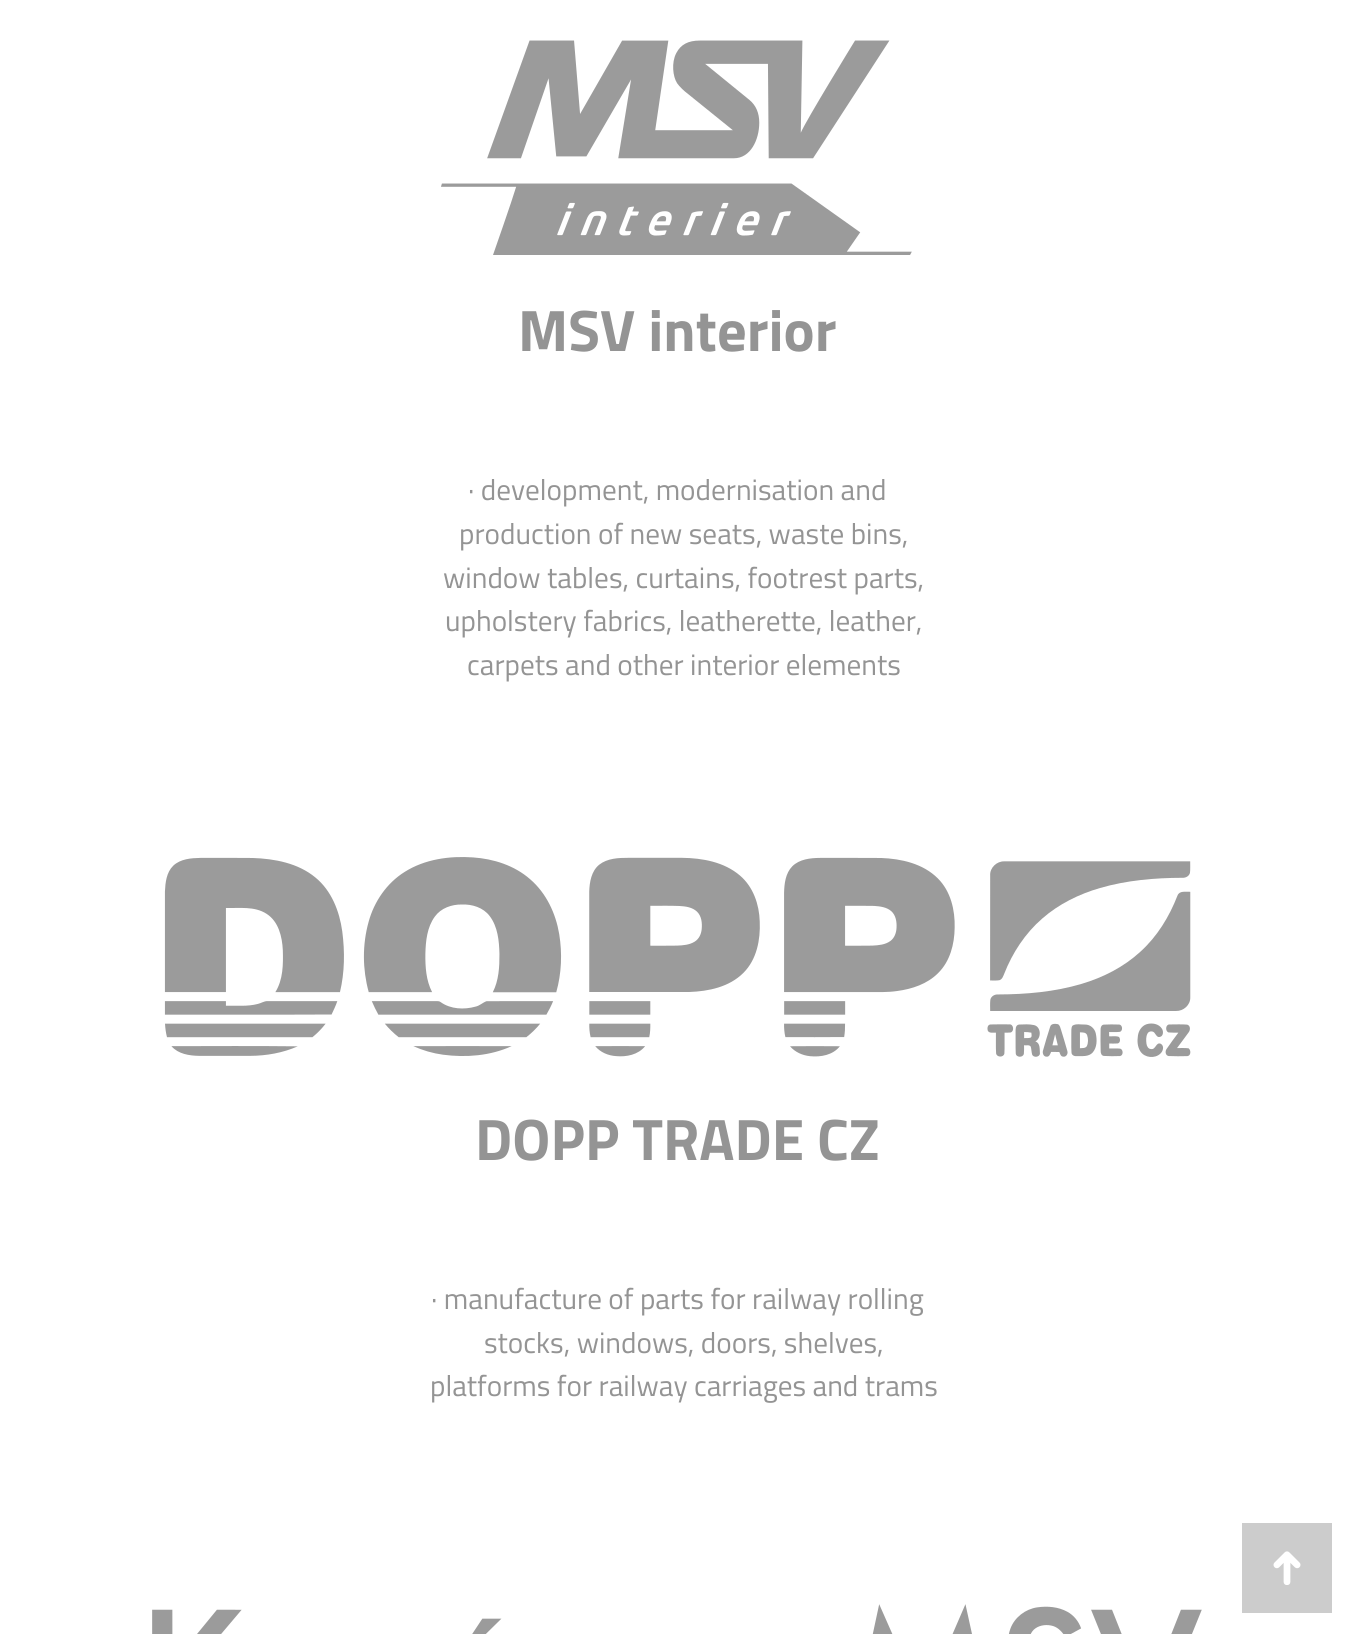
import math
import cairo

surface = cairo.ImageSurface(cairo.FORMAT_RGB24, 1354, 1634)
ctx = cairo.Context(surface)
options = cairo.FontOptions()
options.set_hint_metrics(cairo.HINT_METRICS_OFF)
options.set_hint_style(cairo.HINT_STYLE_NONE)
ctx.set_font_options(options)
ctx.set_miter_limit(4)


def set_color(code):
    ctx.set_source_rgb(*(v / 255 for v in bytes.fromhex(code[-6:])))


def draw_text(x, y, s, family, size, color, bold=False, italic=False):
    ctx.select_font_face(family, cairo.FONT_SLANT_ITALIC if italic else cairo.FONT_SLANT_NORMAL, cairo.FONT_WEIGHT_BOLD if bold else cairo.FONT_WEIGHT_NORMAL)
    ctx.set_font_size(size)
    set_color(color)
    ctx.move_to(x, y)
    ctx.show_text(s)


def fill_rect(x, y, w, h, color):
    set_color(color)
    ctx.rectangle(x, y, w, h)
    ctx.fill()


def draw_image(path, x, y, w, h):
    ctx.save()
    ctx.set_source_surface(cairo.ImageSurface.create_from_png(path), x, y)
    ctx.rectangle(x, y, w, h)
    ctx.fill()
    ctx.restore()


set_color("#ffffff")
ctx.paint()
draw_image("assets/img1.png", 441, 40, 471, 215)
draw_text(518, 351, "MSV interior", "Titillium Web", 58.5, "#949494", bold=True)
draw_text(468, 500, "· development, modernisation and", "Titillium Web", 29.25, "#949494")
draw_text(459, 544, "production of new seats, waste bins,", "Titillium Web", 29.25, "#949494")
draw_text(443, 588, "window tables, curtains, footrest parts,", "Titillium Web", 29.25, "#949494")
draw_text(445, 631, "upholstery fabrics, leatherette, leather,", "Titillium Web", 29.25, "#949494")
draw_text(467, 675, "carpets and other interior elements", "Titillium Web", 29.25, "#949494")
draw_image("assets/img2.png", 164, 857, 1027, 200)
draw_text(475, 1160, "DOPP TRADE CZ", "Titillium Web", 58.5, "#949494", bold=True)
draw_text(431, 1309, "· manufacture of parts for railway rolling", "Titillium Web", 29.25, "#949494")
draw_text(484, 1353, "stocks, windows, doors, shelves,", "Titillium Web", 29.25, "#949494")
draw_text(430, 1396, "platforms for railway carriages and trams", "Titillium Web", 29.25, "#949494")
draw_image("assets/img3.png", 152, 1604, 1050, 30)
fill_rect(1242, 1523, 90, 90, "#cccccc")
draw_image("assets/img4.png", 1273, 1551, 28, 34)
surface.write_to_png("output.png")
